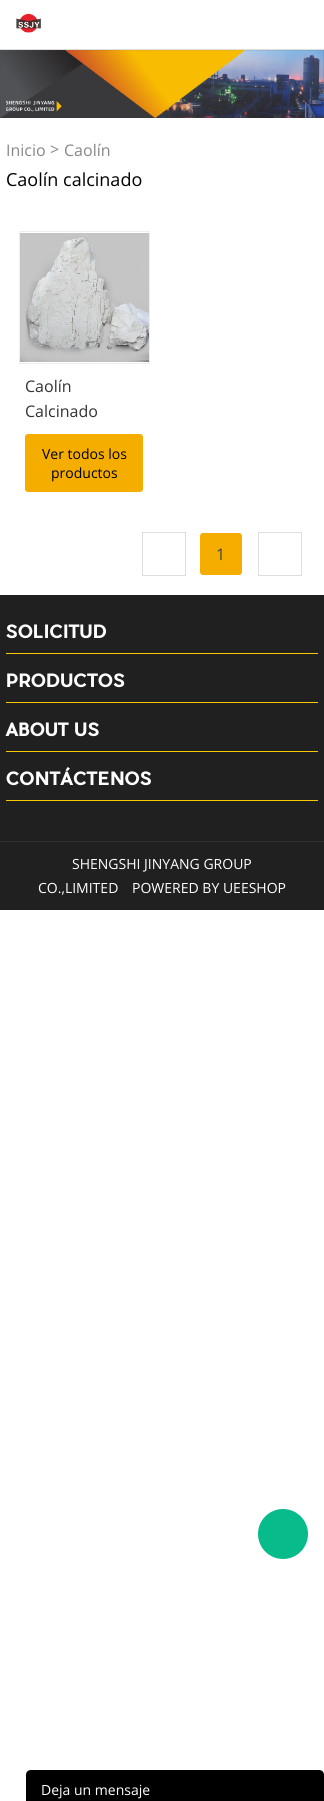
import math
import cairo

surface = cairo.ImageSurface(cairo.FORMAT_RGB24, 324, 1801)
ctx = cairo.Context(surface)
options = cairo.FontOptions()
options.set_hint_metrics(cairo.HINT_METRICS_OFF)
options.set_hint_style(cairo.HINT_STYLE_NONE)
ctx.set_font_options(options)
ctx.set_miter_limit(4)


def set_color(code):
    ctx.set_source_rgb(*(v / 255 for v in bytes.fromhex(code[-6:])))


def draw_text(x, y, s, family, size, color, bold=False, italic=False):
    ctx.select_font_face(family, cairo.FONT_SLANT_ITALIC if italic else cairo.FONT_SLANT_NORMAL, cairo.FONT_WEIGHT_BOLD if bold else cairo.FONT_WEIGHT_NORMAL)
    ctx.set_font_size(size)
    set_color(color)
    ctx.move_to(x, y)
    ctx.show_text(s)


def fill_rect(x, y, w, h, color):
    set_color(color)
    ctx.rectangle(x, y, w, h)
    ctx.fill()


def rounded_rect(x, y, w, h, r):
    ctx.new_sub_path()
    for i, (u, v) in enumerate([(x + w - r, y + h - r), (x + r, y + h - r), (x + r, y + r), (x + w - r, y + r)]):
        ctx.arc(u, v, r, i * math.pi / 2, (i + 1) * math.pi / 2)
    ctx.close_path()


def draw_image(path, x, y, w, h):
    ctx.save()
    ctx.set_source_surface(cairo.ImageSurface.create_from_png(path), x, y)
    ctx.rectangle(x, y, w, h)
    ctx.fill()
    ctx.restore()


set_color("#ffffff")
ctx.paint()
fill_rect(0, 49, 324, 1, "#dddddd")
draw_image("assets/img1.png", 16, 13, 25, 20)
draw_image("assets/img2.png", 0, 50, 324, 68)
draw_text(6, 156, "Inicio", "Open Sans", 16, "#888888")
draw_text(50, 155, ">", "Open Sans", 16, "#888888")
draw_text(64, 156, "Caolín", "Open Sans", 16, "#888888")
draw_text(6, 186, "Caolín calcinado", "Open Sans", 18, "#000000")
ctx.rectangle(19.5, 231.5, 130, 132)
set_color("#eeeeee")
ctx.set_line_width(1)
ctx.stroke()
draw_image("assets/img3.png", 20, 233, 129, 129)
draw_text(25, 392, "Caolín", "Open Sans", 16, "#333333")
draw_text(25, 417, "Calcinado", "Open Sans", 16, "#333333")
set_color("#f5ae00")
rounded_rect(25, 434, 118, 58, 3)
ctx.fill()
draw_text(42, 459, "Ver todos los", "Open Sans", 14, "#000000")
draw_text(51, 478, "productos", "Open Sans", 14, "#000000")
ctx.rectangle(142.5, 532.5, 43, 43)
set_color("#dedede")
ctx.stroke()
set_color("#f5ae00")
rounded_rect(200, 533, 42, 42, 3)
ctx.fill()
draw_text(216, 560, "1", "Open Sans", 16, "#414141")
ctx.rectangle(258.5, 532.5, 43, 43)
set_color("#dedede")
ctx.stroke()
fill_rect(0, 595, 324, 315, "#202020")
fill_rect(6, 653, 312, 1, "#f8c800")
draw_text(6, 638, "SOLICITUD", "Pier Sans", 18, "#ffffff", bold=True)
fill_rect(6, 702, 312, 1, "#f8c800")
draw_text(6, 687, "PRODUCTOS", "Pier Sans", 18, "#ffffff", bold=True)
fill_rect(6, 751, 312, 1, "#f8c800")
draw_text(6, 736, "ABOUT US", "Pier Sans", 18, "#ffffff", bold=True)
fill_rect(6, 800, 312, 1, "#f8c800")
draw_text(6, 785, "CONTÁCTENOS", "Pier Sans", 18, "#ffffff", bold=True)
fill_rect(0, 841, 324, 1, "#313131")
draw_text(72, 869, "SHENGSHI JINYANG GROUP", "Open Sans", 14, "#ffffff")
draw_text(38, 893, "CO.,LIMITED", "Open Sans", 14, "#ffffff")
draw_text(132, 893, "POWERED BY UEESHOP", "Open Sans", 14, "#ffffff")
set_color("#07bb8a")
ctx.new_path()
ctx.arc(283, 1534, 25, 0, 2 * math.pi)
ctx.fill()
set_color("#000000")
ctx.new_path()
ctx.move_to(31, 1770)
ctx.line_to(319, 1770)
ctx.curve_to(322, 1770, 324, 1772, 324, 1775)
ctx.line_to(324, 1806)
ctx.line_to(26, 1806)
ctx.line_to(26, 1775)
ctx.curve_to(26, 1772, 28, 1770, 31, 1770)
ctx.close_path()
ctx.fill()
draw_text(41, 1795, "Deja un mensaje", "Open Sans", 14, "#ffffff")
surface.write_to_png("output.png")
